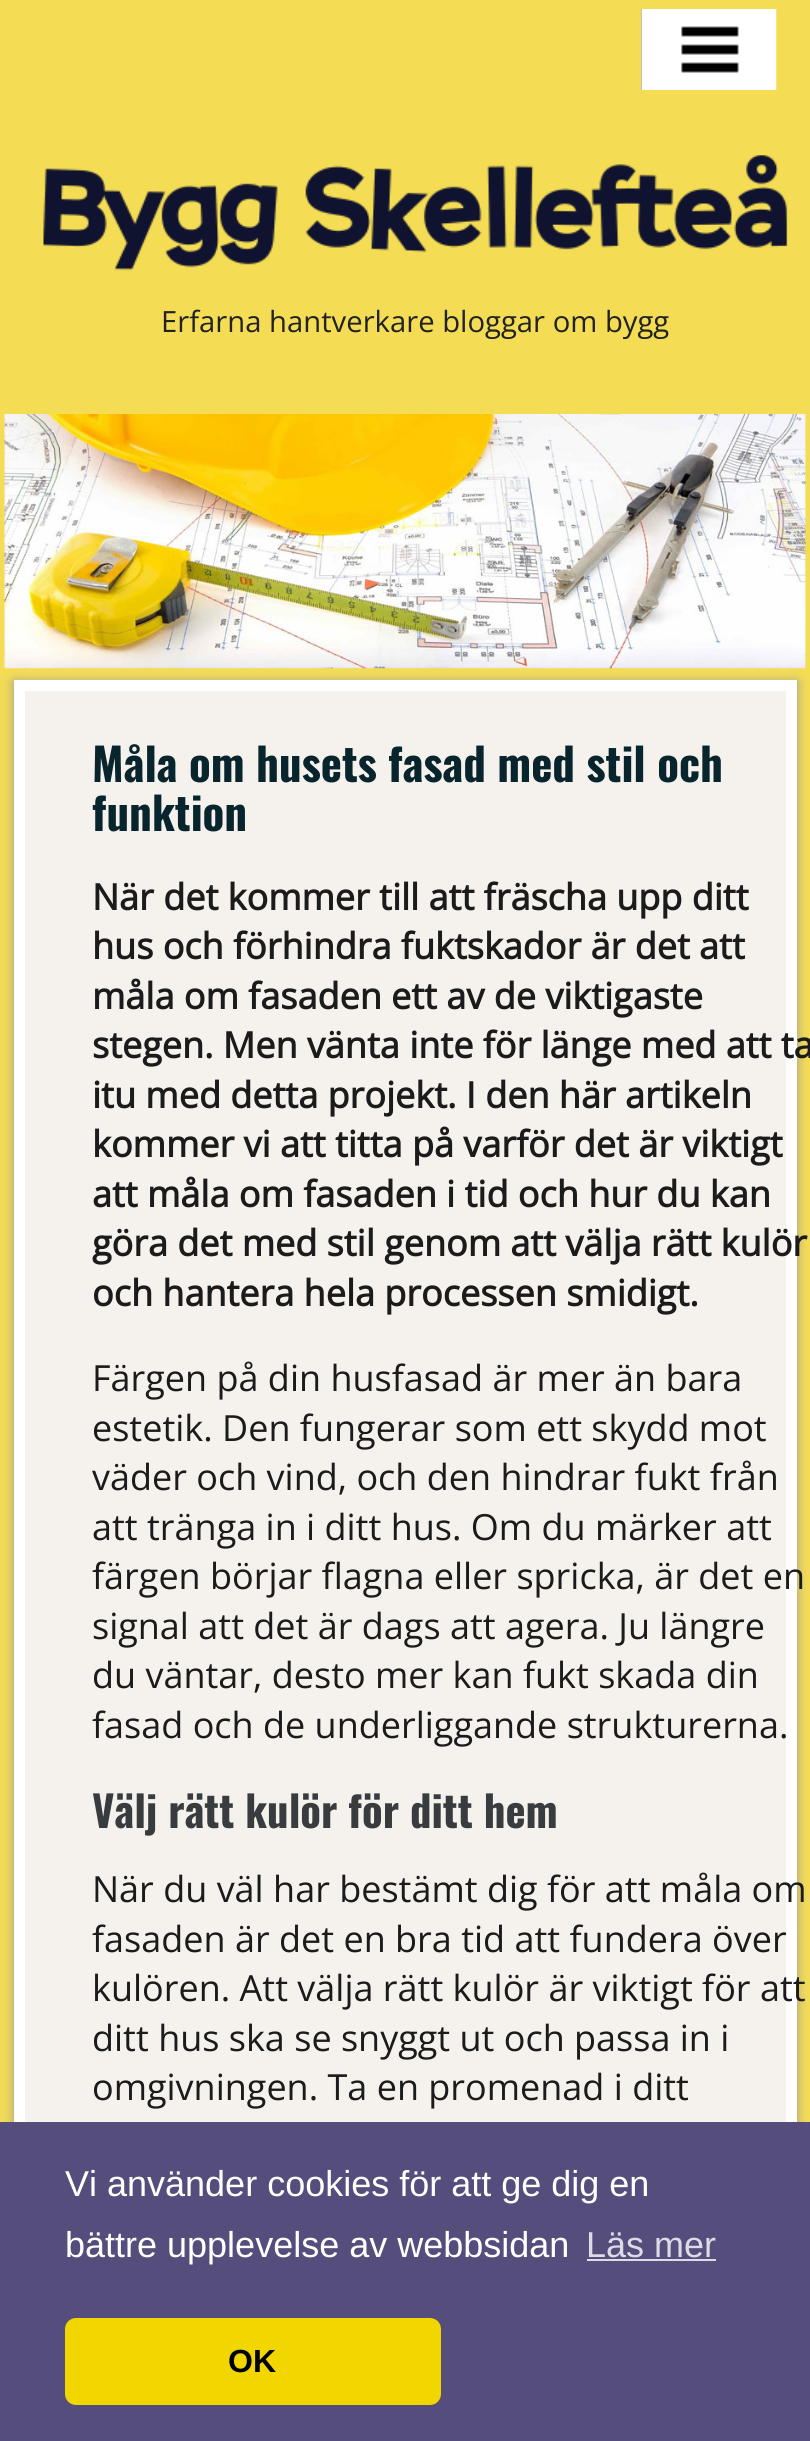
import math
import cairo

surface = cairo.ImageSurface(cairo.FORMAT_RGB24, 810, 2441)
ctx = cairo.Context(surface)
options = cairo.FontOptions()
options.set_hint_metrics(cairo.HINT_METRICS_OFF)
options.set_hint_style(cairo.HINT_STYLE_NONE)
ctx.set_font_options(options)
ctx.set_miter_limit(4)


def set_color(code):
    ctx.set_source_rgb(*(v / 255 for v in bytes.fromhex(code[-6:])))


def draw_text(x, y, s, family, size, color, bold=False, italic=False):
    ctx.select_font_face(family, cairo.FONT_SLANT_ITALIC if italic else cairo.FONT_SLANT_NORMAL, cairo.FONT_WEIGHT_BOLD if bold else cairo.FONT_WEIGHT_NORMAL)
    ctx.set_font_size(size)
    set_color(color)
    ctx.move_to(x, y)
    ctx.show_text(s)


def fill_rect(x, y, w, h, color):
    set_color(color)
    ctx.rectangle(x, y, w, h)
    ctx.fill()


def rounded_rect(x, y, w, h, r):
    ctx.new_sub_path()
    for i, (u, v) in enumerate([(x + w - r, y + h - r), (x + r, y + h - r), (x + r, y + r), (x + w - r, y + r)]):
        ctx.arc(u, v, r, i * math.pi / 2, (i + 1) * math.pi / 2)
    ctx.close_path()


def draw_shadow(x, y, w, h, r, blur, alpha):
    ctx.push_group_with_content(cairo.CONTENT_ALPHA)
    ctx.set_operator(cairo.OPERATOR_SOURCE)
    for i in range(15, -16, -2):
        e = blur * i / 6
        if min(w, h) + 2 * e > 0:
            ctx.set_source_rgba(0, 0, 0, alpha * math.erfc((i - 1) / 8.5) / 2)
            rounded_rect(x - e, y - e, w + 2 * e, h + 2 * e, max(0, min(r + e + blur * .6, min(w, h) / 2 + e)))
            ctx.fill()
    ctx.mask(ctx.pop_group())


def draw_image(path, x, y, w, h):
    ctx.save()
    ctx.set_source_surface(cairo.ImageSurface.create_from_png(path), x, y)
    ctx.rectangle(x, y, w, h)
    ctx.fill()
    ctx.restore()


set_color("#f4dc55")
ctx.paint()
fill_rect(641, 9, 98, 81, "#000000")
draw_image("assets/img1.png", 641, 9, 136, 81)
draw_image("assets/img2.png", 43, 155, 745, 116)
draw_text(161, 332, "Erfarna hantverkare bloggar om bygg", "Open Sans", 29.25, "#222222")
draw_image("assets/img3.png", 4, 414, 802, 255)
set_color("#999999")
draw_shadow(14, 682, 783, 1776, 0, 5.5, 1)
fill_rect(25, 691, 761, 1431, "#f5f2ed")
ctx.rectangle(19.5, 685.5, 772, 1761)
set_color("#ffffff")
ctx.set_line_width(11)
ctx.stroke()
draw_text(92, 782, "Måla om husets fasad med stil och", "Oswald", 45, "#08252e", bold=True)
draw_text(92, 831, "funktion", "Oswald", 45, "#08252e", bold=True)
draw_text(92, 910, "När det kommer till att fräscha upp ditt", "Open Sans", 36, "#1b1b1b", bold=True)
draw_text(92, 959, "hus och förhindra fuktskador är det att", "Open Sans", 36, "#1b1b1b", bold=True)
draw_text(92, 1009, "måla om fasaden ett av de viktigaste", "Open Sans", 36, "#1b1b1b", bold=True)
draw_text(92, 1058, "stegen. Men vänta inte för länge med att ta", "Open Sans", 36, "#1b1b1b", bold=True)
draw_text(92, 1108, "itu med detta projekt. I den här artikeln", "Open Sans", 36, "#1b1b1b", bold=True)
draw_text(92, 1157, "kommer vi att titta på varför det är viktigt", "Open Sans", 36, "#1b1b1b", bold=True)
draw_text(92, 1207, "att måla om fasaden i tid och hur du kan", "Open Sans", 36, "#1b1b1b", bold=True)
draw_text(92, 1256, "göra det med stil genom att välja rätt kulör", "Open Sans", 36, "#1b1b1b", bold=True)
draw_text(92, 1306, "och hantera hela processen smidigt.", "Open Sans", 36, "#1b1b1b", bold=True)
draw_text(92, 1391, "Färgen på din husfasad är mer än bara", "Open Sans", 36, "#1b1b1b")
draw_text(92, 1441, "estetik. Den fungerar som ett skydd mot", "Open Sans", 36, "#1b1b1b")
draw_text(92, 1490, "väder och vind, och den hindrar fukt från", "Open Sans", 36, "#1b1b1b")
draw_text(92, 1540, "att tränga in i ditt hus. Om du märker att", "Open Sans", 36, "#1b1b1b")
draw_text(92, 1589, "färgen börjar flagna eller spricka, är det en", "Open Sans", 36, "#1b1b1b")
draw_text(92, 1639, "signal att det är dags att agera. Ju längre", "Open Sans", 36, "#1b1b1b")
draw_text(92, 1688, "du väntar, desto mer kan fukt skada din", "Open Sans", 36, "#1b1b1b")
draw_text(92, 1738, "fasad och de underliggande strukturerna.", "Open Sans", 36, "#1b1b1b")
draw_text(92, 1828, "Välj rätt kulör för ditt hem", "Oswald", 42.75, "#383c3f", bold=True)
draw_text(92, 1902, "När du väl har bestämt dig för att måla om", "Open Sans", 36, "#1b1b1b")
draw_text(92, 1952, "fasaden är det en bra tid att fundera över", "Open Sans", 36, "#1b1b1b")
draw_text(92, 2001, "kulören. Att välja rätt kulör är viktigt för att", "Open Sans", 36, "#1b1b1b")
draw_text(92, 2051, "ditt hus ska se snyggt ut och passa in i", "Open Sans", 36, "#1b1b1b")
draw_text(92, 2100, "omgivningen. Ta en promenad i ditt", "Open Sans", 36, "#1b1b1b")
fill_rect(0, 2122, 810, 319, "#554d7c")
draw_text(65, 2196, "Vi använder cookies för att ge dig en", "Liberation Sans", 36, "#ffffff")
draw_text(65, 2257, "bättre upplevelse av webbsidan", "Liberation Sans", 36, "#ffffff")
draw_text(586, 2257, "Läs mer", "Liberation Sans", 36, "#dddbe5")
fill_rect(587, 2259, 129, 2, "#dddbe5")
set_color("#f1d600")
rounded_rect(65, 2318, 376, 87, 11)
ctx.fill()
draw_text(228, 2372, "OK", "Liberation Sans", 32, "#000000", bold=True)
surface.write_to_png("output.png")
